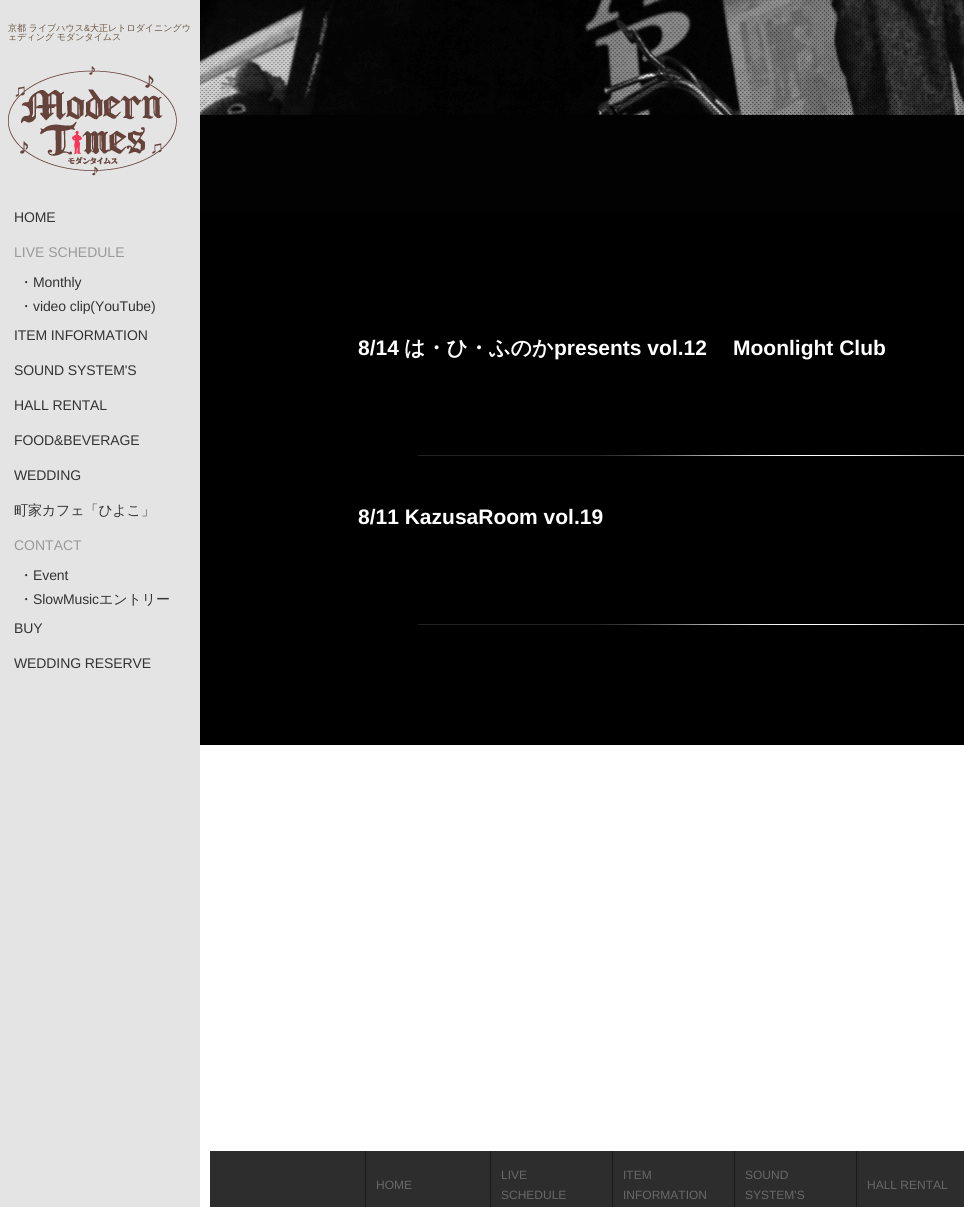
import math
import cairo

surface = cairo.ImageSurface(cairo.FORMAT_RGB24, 964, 1207)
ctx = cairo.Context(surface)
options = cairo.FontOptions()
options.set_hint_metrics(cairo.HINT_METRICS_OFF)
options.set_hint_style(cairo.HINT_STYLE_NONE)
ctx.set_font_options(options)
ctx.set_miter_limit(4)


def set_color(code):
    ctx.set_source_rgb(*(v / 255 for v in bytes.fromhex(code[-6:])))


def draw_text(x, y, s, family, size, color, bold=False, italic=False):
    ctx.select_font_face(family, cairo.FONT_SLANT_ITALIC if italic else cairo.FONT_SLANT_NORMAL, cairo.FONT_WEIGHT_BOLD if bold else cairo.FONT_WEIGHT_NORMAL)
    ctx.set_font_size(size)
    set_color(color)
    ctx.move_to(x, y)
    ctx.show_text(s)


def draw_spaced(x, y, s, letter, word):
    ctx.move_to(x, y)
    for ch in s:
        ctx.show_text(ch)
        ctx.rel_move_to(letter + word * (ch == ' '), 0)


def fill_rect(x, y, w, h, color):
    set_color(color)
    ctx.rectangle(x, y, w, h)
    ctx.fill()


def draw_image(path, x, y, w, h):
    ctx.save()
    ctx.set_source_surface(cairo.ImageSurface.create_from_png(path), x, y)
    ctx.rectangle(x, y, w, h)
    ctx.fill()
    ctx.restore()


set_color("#ffffff")
ctx.paint()
draw_image("assets/img1.png", 200, 0, 764, 115)
fill_rect(200, 115, 764, 98, "#020202")
fill_rect(0, 0, 200, 1207, "#e4e4e4")
draw_text(8, 31, "京都 ライブハウス", "WenQuanYi Zen Hei Medium", 9, "#6a543e")
draw_text(84, 31, "&", "Liberation Sans", 9, "#6a543e")
draw_text(90, 31, "大正レトロダイニングウ", "WenQuanYi Zen Hei Medium", 9, "#6a543e")
draw_text(8, 40, "ェディング モダンタイムス", "WenQuanYi Zen Hei Medium", 9, "#6a543e")
draw_image("assets/img2.png", 8, 66, 169, 110)
ctx.select_font_face("Liberation Sans")
ctx.set_font_size(14)
set_color("#333333")
draw_spaced(14, 222, "HOME", -0.1, 0)
draw_text(14, 257, "LIVE SCHEDULE", "Liberation Sans", 14, "#999999")
ctx.select_font_face("WenQuanYi Zen Hei Medium")
set_color("#333333")
draw_spaced(19, 287, "・", -0.1, 0)
ctx.select_font_face("Liberation Sans")
draw_spaced(33, 287, "Monthly", -0.1, 0)
ctx.select_font_face("WenQuanYi Zen Hei Medium")
draw_spaced(19, 311, "・", -0.1, 0)
ctx.select_font_face("Liberation Sans")
draw_spaced(33, 311, "video clip(YouTube)", -0.1, 0)
draw_spaced(14, 340, "ITEM INFORMATION", -0.1, 0)
draw_spaced(14, 375, "SOUND SYSTEM'S", -0.1, 0)
draw_spaced(14, 410, "HALL RENTAL", -0.1, 0)
draw_spaced(14, 445, "FOOD&BEVERAGE", -0.1, 0)
draw_spaced(14, 480, "WEDDING", -0.1, 0)
ctx.select_font_face("WenQuanYi Zen Hei Medium")
draw_spaced(14, 515, "町家カフェ「ひよこ」", -0.1, 0)
draw_text(14, 550, "CONTACT", "Liberation Sans", 14, "#999999")
ctx.select_font_face("WenQuanYi Zen Hei Medium")
set_color("#333333")
draw_spaced(19, 580, "・", -0.1, 0)
ctx.select_font_face("Liberation Sans")
draw_spaced(33, 580, "Event", -0.1, 0)
ctx.select_font_face("WenQuanYi Zen Hei Medium")
draw_spaced(19, 604, "・", -0.1, 0)
ctx.select_font_face("Liberation Sans")
draw_spaced(33, 604, "SlowMusic", -0.1, 0)
ctx.select_font_face("WenQuanYi Zen Hei Medium")
draw_spaced(99, 604, "エントリー", -0.1, 0)
ctx.select_font_face("Liberation Sans")
draw_spaced(14, 633, "BUY", -0.1, 0)
draw_spaced(14, 668, "WEDDING RESERVE", -0.1, 0)
fill_rect(200, 213, 764, 532, "#000000")
draw_image("assets/img3.png", 418, 455, 546, 1)
draw_text(358, 355, "8/14", "Liberation Sans", 21, "#ffffff", bold=True)
draw_text(404, 355, "は・ひ・ふのか", "WenQuanYi Zen Hei", 21, "#ffffff", bold=True)
draw_text(554, 355, "presents vol.12", "Liberation Sans", 21, "#ffffff", bold=True)
draw_text(733, 355, "Moonlight Club", "Liberation Sans", 21, "#ffffff", bold=True)
draw_image("assets/img3.png", 418, 624, 546, 1)
draw_text(358, 524, "8/11 KazusaRoom vol.19", "Liberation Sans", 21, "#ffffff", bold=True)
fill_rect(210, 1151, 155, 56, "#2e2d2d")
fill_rect(490, 1151, 1, 56, "#1a1a1a")
fill_rect(366, 1151, 124, 56, "#2e2d2d")
fill_rect(365, 1151, 1, 56, "#1a1a1a")
draw_text(376, 1189, "HOME", "Liberation Sans", 12, "#686868")
fill_rect(612, 1151, 1, 56, "#1a1a1a")
fill_rect(491, 1151, 121, 56, "#2e2d2d")
draw_text(501, 1179, "LIVE", "Liberation Sans", 12, "#686868")
draw_text(501, 1199, "SCHEDULE", "Liberation Sans", 12, "#686868")
fill_rect(734, 1151, 1, 56, "#1a1a1a")
fill_rect(613, 1151, 121, 56, "#2e2d2d")
draw_text(623, 1179, "ITEM", "Liberation Sans", 12, "#686868")
draw_text(623, 1199, "INFORMATION", "Liberation Sans", 12, "#686868")
fill_rect(856, 1151, 1, 56, "#1a1a1a")
fill_rect(735, 1151, 121, 56, "#2e2d2d")
draw_text(745, 1179, "SOUND", "Liberation Sans", 12, "#686868")
draw_text(745, 1199, "SYSTEM'S", "Liberation Sans", 12, "#686868")
fill_rect(857, 1151, 107, 56, "#2e2d2d")
draw_text(867, 1189, "HALL RENTAL", "Liberation Sans", 12, "#686868")
surface.write_to_png("output.png")
